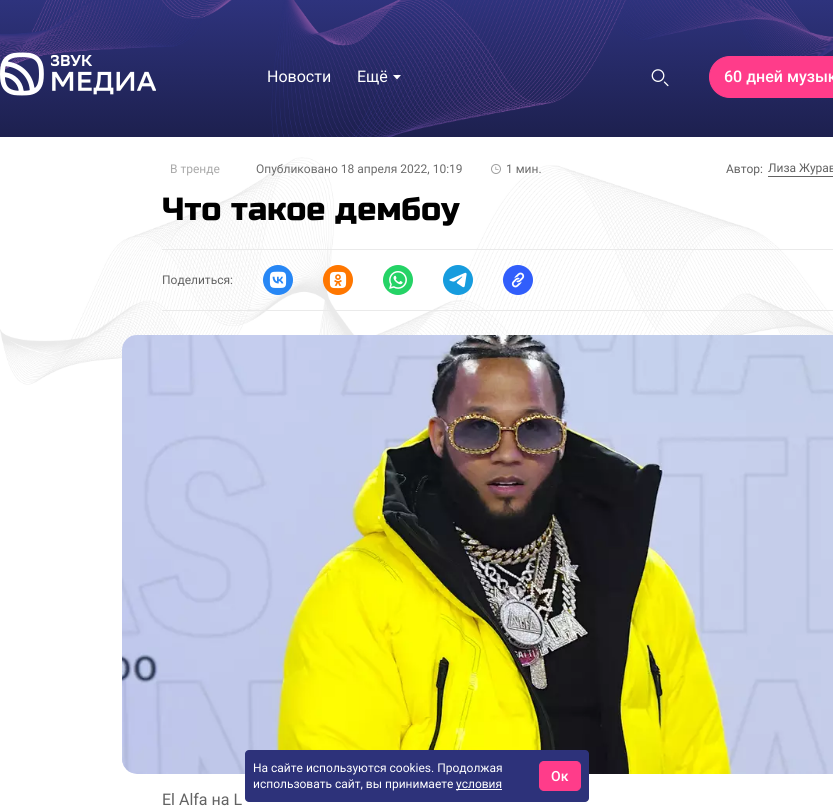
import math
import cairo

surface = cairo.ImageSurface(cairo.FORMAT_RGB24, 833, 812)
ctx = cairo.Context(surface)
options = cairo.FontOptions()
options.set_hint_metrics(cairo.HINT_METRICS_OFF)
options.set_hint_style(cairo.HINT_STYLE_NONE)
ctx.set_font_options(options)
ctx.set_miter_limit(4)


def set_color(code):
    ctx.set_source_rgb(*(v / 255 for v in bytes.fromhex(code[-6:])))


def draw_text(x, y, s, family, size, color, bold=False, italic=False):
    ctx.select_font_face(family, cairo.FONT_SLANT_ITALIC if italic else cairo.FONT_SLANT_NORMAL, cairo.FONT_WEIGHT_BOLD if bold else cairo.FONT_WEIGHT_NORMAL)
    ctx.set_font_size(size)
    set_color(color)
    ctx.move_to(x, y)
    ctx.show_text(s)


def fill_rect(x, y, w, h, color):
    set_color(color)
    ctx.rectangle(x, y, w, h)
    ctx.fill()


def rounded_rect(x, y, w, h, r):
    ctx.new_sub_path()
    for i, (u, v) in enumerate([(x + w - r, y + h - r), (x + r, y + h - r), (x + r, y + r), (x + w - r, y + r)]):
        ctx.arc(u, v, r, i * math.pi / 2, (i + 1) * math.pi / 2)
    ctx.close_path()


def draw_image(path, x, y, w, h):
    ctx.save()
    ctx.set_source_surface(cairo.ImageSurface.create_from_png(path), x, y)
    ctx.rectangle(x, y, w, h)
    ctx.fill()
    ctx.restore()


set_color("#ffffff")
ctx.paint()
draw_image("assets/img1.png", 0, 0, 833, 137)
draw_image("assets/img2.png", 0, 52, 156, 44)
draw_text(267, 82, "Новости", "Roboto", 16, "#ffffff")
draw_text(357, 82, "Ещё", "Roboto", 16, "#ffffff")
ctx.new_path()
ctx.move_to(393, 75)
ctx.line_to(401, 75)
ctx.line_to(397, 79.5)
ctx.close_path()
ctx.fill()
draw_image("assets/img3.png", 651, 69, 18, 18)
set_color("#ff3c8a")
rounded_rect(709.5, 56.5, 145, 41, 20.5)
ctx.fill_preserve()
ctx.set_line_width(1)
ctx.stroke()
draw_text(724, 82, "60 дней музык", "Roboto Medium", 16, "#ffffff")
draw_image("assets/img4.png", 0, 157, 833, 228)
draw_text(170, 173, "В тренде", "Roboto", 12, "#aaaaaa")
draw_text(256, 173, "Опубликовано 18 апреля 2022, 10:19", "Roboto", 12, "#6b6b6b")
draw_image("assets/img5.png", 491, 164, 10, 10)
draw_text(506, 173, "1 мин.", "Roboto", 12, "#6b6b6b")
draw_text(726, 173, "Автор:", "Roboto", 12, "#626262")
fill_rect(768, 176, 65, 1, "#626262")
draw_text(768, 172, "Лиза Журав", "Roboto", 12, "#626262")
draw_text(162, 220, "Что такое дембоу", "Russo One", 32, "#000000")
fill_rect(162, 249, 671, 1, "#eaeaea")
fill_rect(162, 310, 671, 1, "#eaeaea")
draw_text(162, 284, "Поделиться:", "Roboto", 12, "#626262")
set_color("#2787f5")
ctx.new_path()
ctx.arc(278, 280, 15, 0, 2 * math.pi)
ctx.fill()
draw_image("assets/img6.png", 269, 271, 18, 17)
set_color("#ff7700")
ctx.arc(338, 280, 15, 0, 2 * math.pi)
ctx.fill()
draw_image("assets/img7.png", 329, 271, 18, 18)
set_color("#25d366")
ctx.arc(398, 280, 15, 0, 2 * math.pi)
ctx.fill()
draw_image("assets/img8.png", 389, 271, 18, 18)
set_color("#179cde")
ctx.arc(458, 280, 15, 0, 2 * math.pi)
ctx.fill()
draw_image("assets/img9.png", 449, 272, 18, 16)
set_color("#315efb")
ctx.arc(518, 280, 15, 0, 2 * math.pi)
ctx.fill()
draw_image("assets/img10.png", 511, 272, 14, 16)
draw_image("assets/img11.png", 122, 335, 711, 439)
draw_text(162, 805, "El Alfa на L", "Roboto", 16, "#626262")
set_color("#2d327a")
rounded_rect(245, 750, 344, 52, 4)
ctx.fill()
draw_text(253, 772, "На сайте используются cookies. Продолжая", "Roboto", 12, "#ffffff")
draw_text(253, 788, "использовать сайт, вы принимаете", "Roboto", 12, "#ffffff")
fill_rect(456, 789, 46, 1, "#ffffff")
draw_text(456, 788, "условия", "Roboto", 12, "#ffffff")
set_color("#ff3c8a")
rounded_rect(539.5, 761.5, 41, 29, 4.5)
ctx.fill_preserve()
ctx.stroke()
draw_text(551, 781, "Ок", "Roboto Medium", 14, "#ffffff")
surface.write_to_png("output.png")
